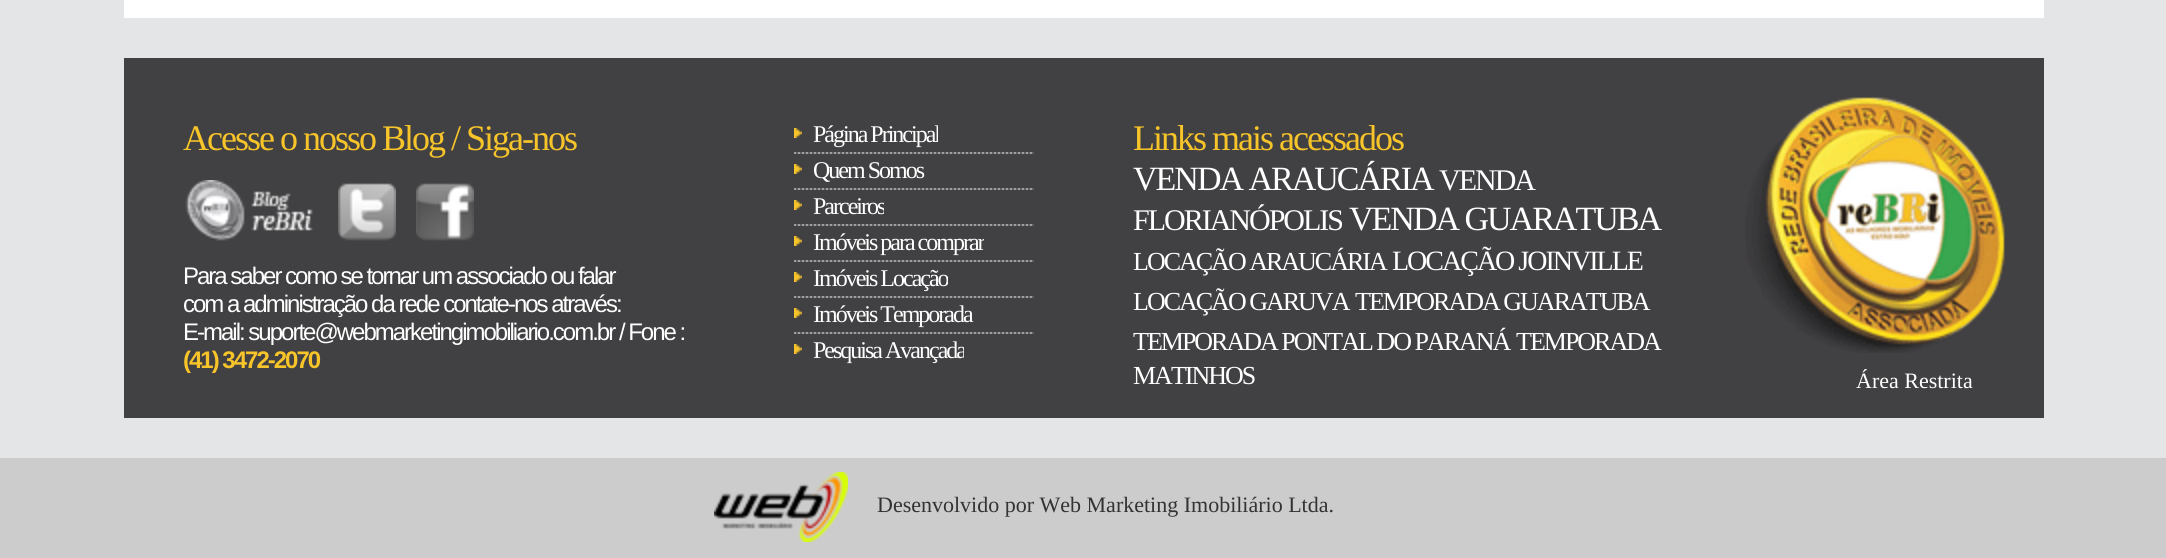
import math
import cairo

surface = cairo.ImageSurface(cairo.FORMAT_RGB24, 2166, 558)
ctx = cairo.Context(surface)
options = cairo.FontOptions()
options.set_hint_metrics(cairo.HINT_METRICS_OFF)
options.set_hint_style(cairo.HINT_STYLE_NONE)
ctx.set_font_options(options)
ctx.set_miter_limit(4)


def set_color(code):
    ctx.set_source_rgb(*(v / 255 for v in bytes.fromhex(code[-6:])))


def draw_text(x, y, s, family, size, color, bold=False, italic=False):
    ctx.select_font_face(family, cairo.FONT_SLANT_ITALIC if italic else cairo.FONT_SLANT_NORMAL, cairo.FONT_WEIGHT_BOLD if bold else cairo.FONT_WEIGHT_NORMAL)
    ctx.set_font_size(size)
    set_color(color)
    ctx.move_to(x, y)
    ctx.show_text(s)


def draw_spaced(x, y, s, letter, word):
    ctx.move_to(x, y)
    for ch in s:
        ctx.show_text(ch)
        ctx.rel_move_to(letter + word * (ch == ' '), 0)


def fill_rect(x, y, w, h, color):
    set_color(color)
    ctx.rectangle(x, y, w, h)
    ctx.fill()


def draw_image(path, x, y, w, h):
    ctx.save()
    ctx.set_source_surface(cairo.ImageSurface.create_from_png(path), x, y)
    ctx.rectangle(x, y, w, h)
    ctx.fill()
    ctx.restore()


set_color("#e4e5e6")
ctx.paint()
fill_rect(124, 0, 1920, 18, "#ffffff")
fill_rect(124, 58, 1920, 360, "#414042")
draw_image("assets/img1.png", 1745, 97, 260, 256)
ctx.select_font_face("Liberation Serif")
ctx.set_font_size(36)
set_color("#f7c42a")
draw_spaced(183, 150, "Acesse o nosso Blog / Siga-nos", -2, 0)
draw_image("assets/img2.png", 185, 180, 128, 61)
draw_image("assets/img3.png", 338, 183, 58, 58)
draw_image("assets/img4.png", 416, 183, 58, 58)
ctx.select_font_face("Liberation Sans")
ctx.set_font_size(24)
set_color("#ffffff")
draw_spaced(183, 284, "Para saber como se tornar um associado ou falar", -2, 0)
draw_spaced(183, 312, "com a administração da rede contate-nos através:", -2, 0)
draw_spaced(183, 340, "E-mail: suporte@webmarketingimobiliario.com.br / Fone :", -2, 0)
ctx.select_font_face("Liberation Sans", cairo.FONT_SLANT_NORMAL, cairo.FONT_WEIGHT_BOLD)
set_color("#f7c42a")
draw_spaced(183, 368, "(41) 3472-2070", -2, 0)
draw_image("assets/img5.png", 794, 152, 240, 2)
draw_image("assets/img6.png", 794, 128, 8, 10)
ctx.save()
ctx.rectangle(794, 120, 144, 30)
ctx.clip()
ctx.select_font_face("Liberation Serif")
set_color("#ffffff")
draw_spaced(813, 142, "Página Principal", -2, 0)
ctx.restore()
draw_image("assets/img5.png", 794, 188, 240, 2)
draw_image("assets/img6.png", 794, 164, 8, 10)
ctx.select_font_face("Liberation Serif")
set_color("#ffffff")
draw_spaced(813, 178, "Quem Somos", -2, 0)
draw_image("assets/img5.png", 794, 224, 240, 2)
draw_image("assets/img6.png", 794, 200, 8, 10)
ctx.save()
ctx.rectangle(794, 192, 90, 30)
ctx.clip()
draw_spaced(813, 214, "Parceiros", -2, 0)
ctx.restore()
draw_image("assets/img5.png", 794, 260, 240, 2)
draw_image("assets/img6.png", 794, 236, 8, 10)
ctx.save()
ctx.rectangle(794, 228, 190, 30)
ctx.clip()
draw_spaced(813, 250, "Imóveis para comprar", -2, 0)
ctx.restore()
draw_image("assets/img5.png", 794, 296, 240, 2)
draw_image("assets/img6.png", 794, 272, 8, 10)
ctx.save()
ctx.rectangle(794, 264, 154, 30)
ctx.clip()
draw_spaced(813, 286, "Imóveis Locação", -2, 0)
ctx.restore()
draw_image("assets/img5.png", 794, 332, 240, 2)
draw_image("assets/img6.png", 794, 308, 8, 10)
draw_spaced(813, 322, "Imóveis Temporada", -2, 0)
draw_image("assets/img6.png", 794, 344, 8, 10)
ctx.save()
ctx.rectangle(794, 336, 170, 30)
ctx.clip()
draw_spaced(813, 358, "Pesquisa Avançada", -2, 0)
ctx.restore()
ctx.set_font_size(36)
set_color("#f7c42a")
draw_spaced(1133, 150, "Links mais acessados", -2, 0)
ctx.set_font_size(34)
set_color("#ffffff")
draw_spaced(1133, 190, "VENDA ARAUCÁRIA", -2, 0)
ctx.set_font_size(30)
draw_spaced(1439, 190, "VENDA", -2, 0)
draw_spaced(1133, 230, "FLORIANÓPOLIS", -2, 0)
ctx.set_font_size(34)
draw_spaced(1349, 230, "VENDA GUARATUBA", -2, 0)
ctx.set_font_size(26)
draw_spaced(1133, 270, "LOCAÇÃO ARAUCÁRIA", -2, 0)
ctx.set_font_size(28)
draw_spaced(1392, 270, "LOCAÇÃO JOINVILLE", -2, 0)
ctx.set_font_size(26)
draw_spaced(1133, 310, "LOCAÇÃO GARUVA", -2, 0)
draw_spaced(1355, 310, "TEMPORADA GUARATUBA", -2, 0)
draw_spaced(1133, 350, "TEMPORADA PONTAL DO PARANÁ", -2, 0)
draw_spaced(1516, 350, "TEMPORADA", -2, 0)
draw_spaced(1133, 384, "MATINHOS", -2, 0)
draw_text(1856, 388, "Área Restrita", "Liberation Serif", 22, "#ffffff")
fill_rect(0, 458, 2166, 100, "#cccccc")
draw_image("assets/img7.png", 714, 472, 134, 70)
draw_text(877, 512, "Desenvolvido por Web Marketing Imobiliário Ltda.", "Liberation Serif", 22, "#333333")
surface.write_to_png("output.png")
